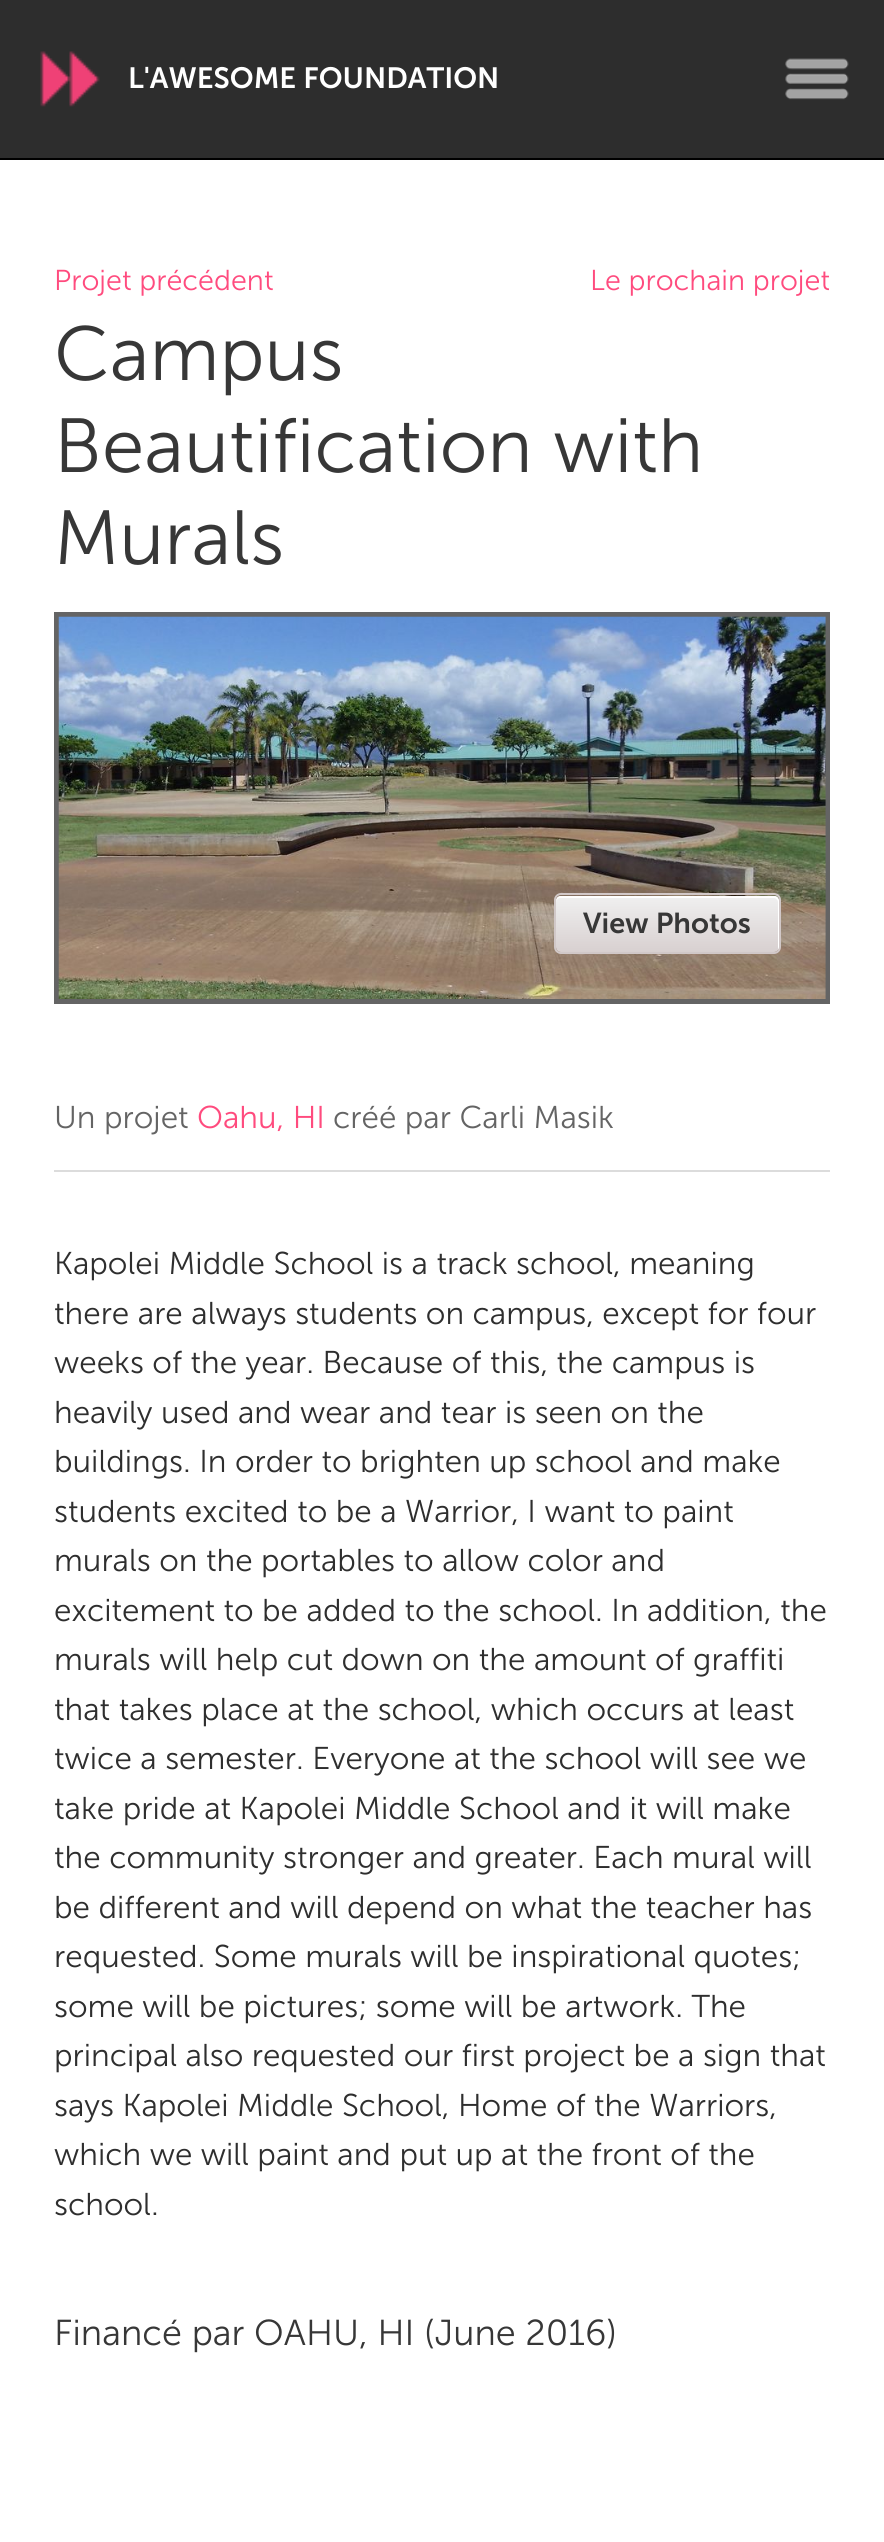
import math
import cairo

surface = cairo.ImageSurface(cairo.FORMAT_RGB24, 884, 2542)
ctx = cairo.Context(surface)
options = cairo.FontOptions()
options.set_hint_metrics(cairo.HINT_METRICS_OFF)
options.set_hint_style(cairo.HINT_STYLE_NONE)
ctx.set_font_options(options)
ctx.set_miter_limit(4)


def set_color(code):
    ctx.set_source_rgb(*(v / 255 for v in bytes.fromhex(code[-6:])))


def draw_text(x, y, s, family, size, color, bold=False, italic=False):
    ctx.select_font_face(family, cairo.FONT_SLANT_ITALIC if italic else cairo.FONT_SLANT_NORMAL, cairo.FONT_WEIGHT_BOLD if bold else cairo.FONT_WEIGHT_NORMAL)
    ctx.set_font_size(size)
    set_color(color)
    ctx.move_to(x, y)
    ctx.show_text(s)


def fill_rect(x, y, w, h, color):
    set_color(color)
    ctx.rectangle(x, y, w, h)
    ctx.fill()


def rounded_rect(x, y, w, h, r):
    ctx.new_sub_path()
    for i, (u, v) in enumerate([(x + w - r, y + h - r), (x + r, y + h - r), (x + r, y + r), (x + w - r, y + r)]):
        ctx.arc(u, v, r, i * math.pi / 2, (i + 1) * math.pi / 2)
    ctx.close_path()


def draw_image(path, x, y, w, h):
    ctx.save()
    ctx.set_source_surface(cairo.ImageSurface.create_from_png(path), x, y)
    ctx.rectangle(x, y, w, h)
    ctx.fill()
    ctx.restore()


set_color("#ffffff")
ctx.paint()
fill_rect(0, 0, 884, 158, "#2d2d2d")
fill_rect(0, 158, 884, 2, "#000000")
draw_image("assets/img1.png", 40, 51, 60, 56)
draw_text(128, 88, "L'AWESOME FOUNDATION", "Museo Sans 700 SemiBold", 29.25, "#ffffff")
draw_image("assets/img2.png", 785, 58, 64, 42)
draw_text(54, 290, "Projet précédent", "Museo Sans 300 Light", 28.75, "#ff4b7e")
draw_text(590, 290, "Le prochain projet", "Museo Sans 300 Light", 28.75, "#ff4b7e")
draw_text(54, 380, "Campus", "Museo Sans 300 Light", 76.5, "#373737")
draw_text(54, 472, "Beautification with", "Museo Sans 300 Light", 76.5, "#373737")
draw_text(54, 564, "Murals", "Museo Sans 300 Light", 76.5, "#373737")
fill_rect(54, 612, 776, 392, "#646464")
draw_image("assets/img3.png", 58, 616, 768, 383)
gradient = cairo.LinearGradient(667, 896, 667, 952)
gradient.add_color_stop_rgba(0, 0.941, 0.941, 0.941, 1)
gradient.add_color_stop_rgba(1, 0.847, 0.816, 0.816, 1)
ctx.set_source(gradient)
rounded_rect(556, 896, 223, 56, 5)
ctx.fill()
set_color("#ffffff")
ctx.new_path()
ctx.move_to(560, 898)
ctx.line_to(774, 898)
ctx.curve_to(776, 898, 778, 900, 778, 902)
ctx.line_to(778, 950)
ctx.curve_to(779, 949, 779, 948, 779, 947)
ctx.line_to(779, 901)
ctx.curve_to(779, 898, 777, 896, 774, 896)
ctx.line_to(561, 896)
ctx.curve_to(558, 896, 556, 898, 556, 901)
ctx.line_to(556, 902)
ctx.curve_to(556, 900, 558, 898, 560, 898)
ctx.close_path()
ctx.fill()
rounded_rect(555, 894, 225, 59, 6)
set_color("#d1c8c8")
ctx.stroke()
draw_text(583, 933, "View Photos", "Museo Sans 700 SemiBold", 28.75, "#373737")
fill_rect(54, 1170, 776, 2, "#dcdcdc")
draw_text(54, 1128, "Un projet", "Museo Sans 300 Light", 31.5, "#646464")
draw_text(197, 1128, "Oahu, HI", "Museo Sans 300 Light", 31.5, "#ff4b7e")
draw_text(333, 1128, "créé par Carli Masik", "Museo Sans 300 Light", 31.5, "#646464")
draw_text(54, 1274, "Kapolei Middle School is a track school, meaning", "Museo Sans 300 Light", 31.5, "#2e2e2e")
draw_text(54, 1324, "there are always students on campus, except for four", "Museo Sans 300 Light", 31.5, "#2e2e2e")
draw_text(54, 1373, "weeks of the year. Because of this, the campus is", "Museo Sans 300 Light", 31.5, "#2e2e2e")
draw_text(54, 1423, "heavily used and wear and tear is seen on the", "Museo Sans 300 Light", 31.5, "#2e2e2e")
draw_text(54, 1472, "buildings. In order to brighten up school and make", "Museo Sans 300 Light", 31.5, "#2e2e2e")
draw_text(54, 1522, "students excited to be a Warrior, I want to paint", "Museo Sans 300 Light", 31.5, "#2e2e2e")
draw_text(54, 1571, "murals on the portables to allow color and", "Museo Sans 300 Light", 31.5, "#2e2e2e")
draw_text(54, 1621, "excitement to be added to the school. In addition, the", "Museo Sans 300 Light", 31.5, "#2e2e2e")
draw_text(54, 1670, "murals will help cut down on the amount of graffiti", "Museo Sans 300 Light", 31.5, "#2e2e2e")
draw_text(54, 1720, "that takes place at the school, which occurs at least", "Museo Sans 300 Light", 31.5, "#2e2e2e")
draw_text(54, 1769, "twice a semester. Everyone at the school will see we", "Museo Sans 300 Light", 31.5, "#2e2e2e")
draw_text(54, 1819, "take pride at Kapolei Middle School and it will make", "Museo Sans 300 Light", 31.5, "#2e2e2e")
draw_text(54, 1868, "the community stronger and greater. Each mural will", "Museo Sans 300 Light", 31.5, "#2e2e2e")
draw_text(54, 1918, "be different and will depend on what the teacher has", "Museo Sans 300 Light", 31.5, "#2e2e2e")
draw_text(54, 1967, "requested. Some murals will be inspirational quotes;", "Museo Sans 300 Light", 31.5, "#2e2e2e")
draw_text(54, 2017, "some will be pictures; some will be artwork. The", "Museo Sans 300 Light", 31.5, "#2e2e2e")
draw_text(54, 2066, "principal also requested our first project be a sign that", "Museo Sans 300 Light", 31.5, "#2e2e2e")
draw_text(54, 2116, "says Kapolei Middle School, Home of the Warriors,", "Museo Sans 300 Light", 31.5, "#2e2e2e")
draw_text(54, 2165, "which we will paint and put up at the front of the", "Museo Sans 300 Light", 31.5, "#2e2e2e")
draw_text(54, 2215, "school.", "Museo Sans 300 Light", 31.5, "#2e2e2e")
draw_text(54, 2345, "Financé par OAHU, HI (June 2016)", "Museo Sans 300 Light", 36, "#373737")
surface.write_to_png("output.png")
